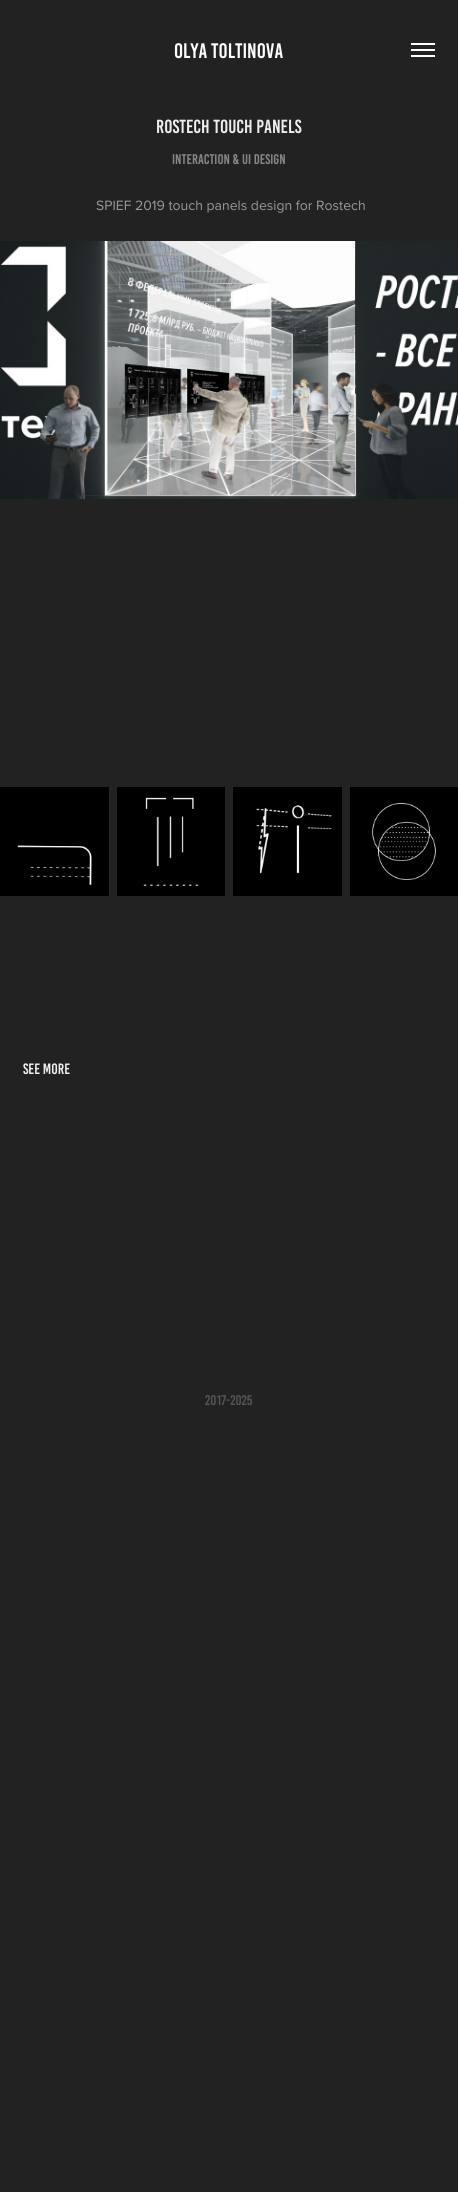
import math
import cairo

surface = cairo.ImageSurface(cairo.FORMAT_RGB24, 458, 2192)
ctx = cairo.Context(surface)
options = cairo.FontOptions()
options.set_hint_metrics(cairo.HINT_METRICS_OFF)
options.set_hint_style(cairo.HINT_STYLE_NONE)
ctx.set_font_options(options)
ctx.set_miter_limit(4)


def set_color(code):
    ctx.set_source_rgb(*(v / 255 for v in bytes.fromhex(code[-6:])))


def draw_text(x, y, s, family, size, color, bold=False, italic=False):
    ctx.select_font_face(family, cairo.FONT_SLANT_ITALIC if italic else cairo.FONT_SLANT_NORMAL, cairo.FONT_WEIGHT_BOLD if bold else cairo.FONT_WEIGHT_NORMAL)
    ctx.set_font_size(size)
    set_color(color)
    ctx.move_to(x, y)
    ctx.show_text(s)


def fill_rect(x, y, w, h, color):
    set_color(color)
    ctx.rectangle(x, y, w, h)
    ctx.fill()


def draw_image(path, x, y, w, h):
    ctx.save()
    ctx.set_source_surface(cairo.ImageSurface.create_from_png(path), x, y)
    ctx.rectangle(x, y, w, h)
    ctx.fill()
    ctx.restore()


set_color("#222222")
ctx.paint()
draw_text(174, 58, "Olya Toltinova", "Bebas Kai", 21, "#ffffff")
fill_rect(411, 43, 24, 2, "#ffffff")
fill_rect(411, 49, 24, 2, "#ffffff")
fill_rect(411, 55, 24, 2, "#ffffff")
draw_text(156, 133, "Rostech Touch Panels", "Bebas Kai", 19, "#eeeeee")
draw_text(172, 164, "Interaction & UI Design", "Bebas Kai", 14, "#888888")
draw_text(96, 210, "SPIEF 2019 touch panels design for Rostech", "Proxima Nova", 14, "#999999")
draw_image("assets/img1.png", 0, 241, 458, 258)
draw_image("assets/img2.png", 0, 787, 109, 109)
draw_image("assets/img3.png", 117, 787, 108, 109)
draw_image("assets/img4.png", 233, 787, 109, 109)
draw_image("assets/img5.png", 350, 787, 108, 109)
draw_text(23, 1074, "See more", "Bebas Kai", 15, "#eeeeee")
draw_text(205, 1405, "2017-2025", "Bebas Kai", 14, "#555555")
surface.write_to_png("output.png")
